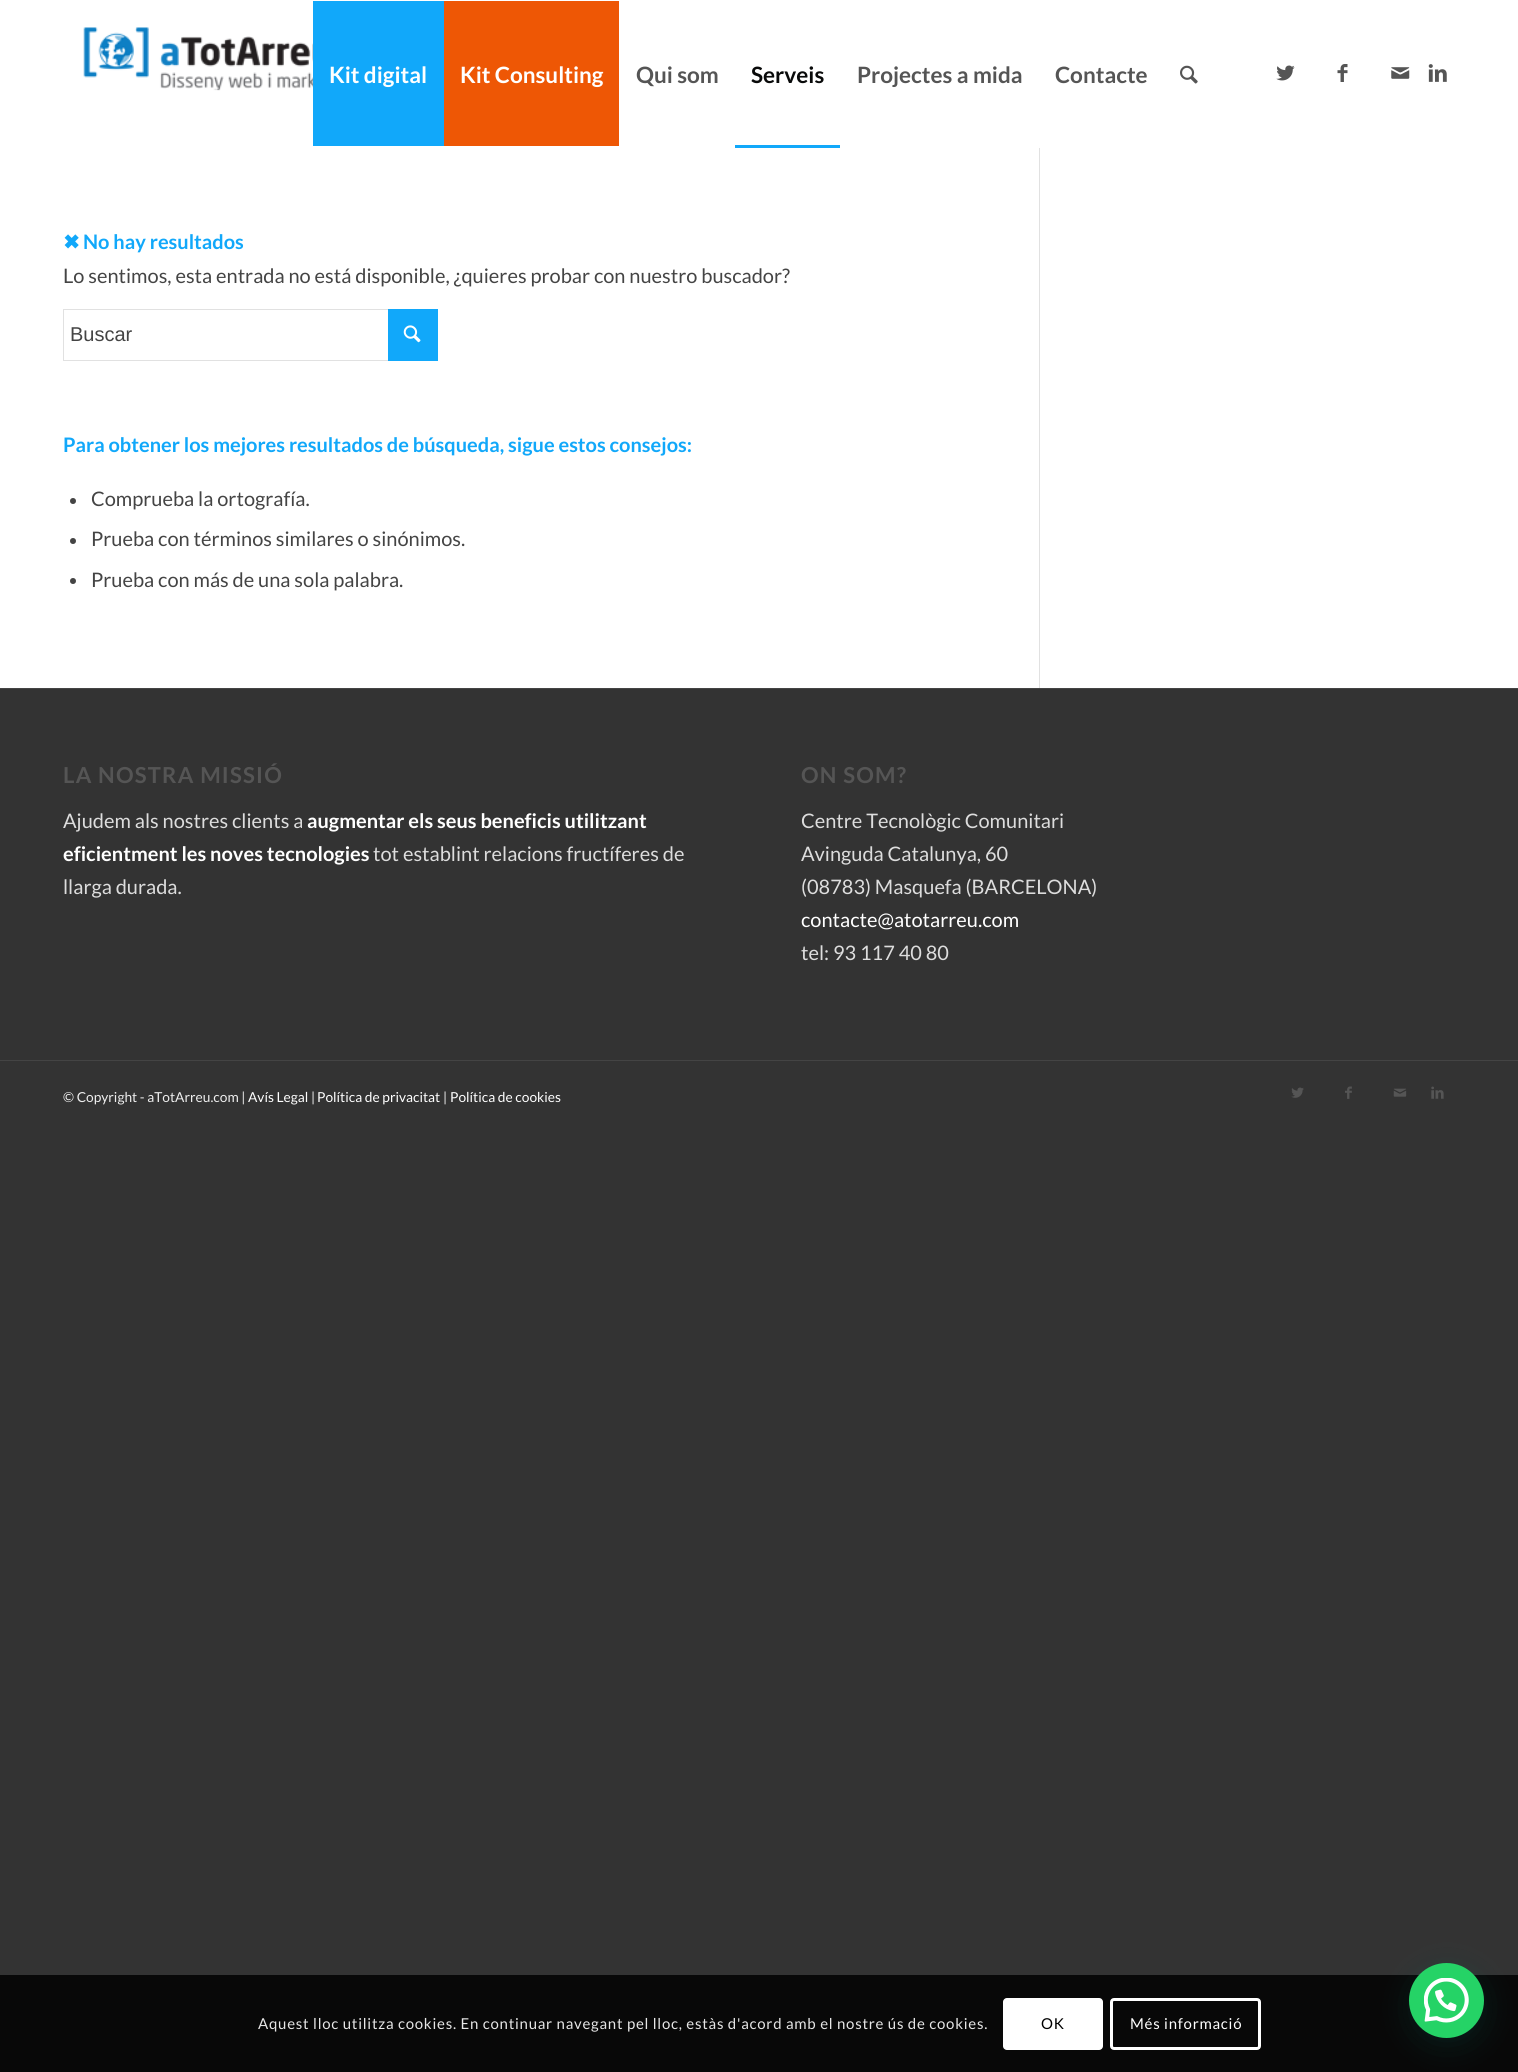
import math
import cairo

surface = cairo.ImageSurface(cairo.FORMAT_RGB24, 1518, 2072)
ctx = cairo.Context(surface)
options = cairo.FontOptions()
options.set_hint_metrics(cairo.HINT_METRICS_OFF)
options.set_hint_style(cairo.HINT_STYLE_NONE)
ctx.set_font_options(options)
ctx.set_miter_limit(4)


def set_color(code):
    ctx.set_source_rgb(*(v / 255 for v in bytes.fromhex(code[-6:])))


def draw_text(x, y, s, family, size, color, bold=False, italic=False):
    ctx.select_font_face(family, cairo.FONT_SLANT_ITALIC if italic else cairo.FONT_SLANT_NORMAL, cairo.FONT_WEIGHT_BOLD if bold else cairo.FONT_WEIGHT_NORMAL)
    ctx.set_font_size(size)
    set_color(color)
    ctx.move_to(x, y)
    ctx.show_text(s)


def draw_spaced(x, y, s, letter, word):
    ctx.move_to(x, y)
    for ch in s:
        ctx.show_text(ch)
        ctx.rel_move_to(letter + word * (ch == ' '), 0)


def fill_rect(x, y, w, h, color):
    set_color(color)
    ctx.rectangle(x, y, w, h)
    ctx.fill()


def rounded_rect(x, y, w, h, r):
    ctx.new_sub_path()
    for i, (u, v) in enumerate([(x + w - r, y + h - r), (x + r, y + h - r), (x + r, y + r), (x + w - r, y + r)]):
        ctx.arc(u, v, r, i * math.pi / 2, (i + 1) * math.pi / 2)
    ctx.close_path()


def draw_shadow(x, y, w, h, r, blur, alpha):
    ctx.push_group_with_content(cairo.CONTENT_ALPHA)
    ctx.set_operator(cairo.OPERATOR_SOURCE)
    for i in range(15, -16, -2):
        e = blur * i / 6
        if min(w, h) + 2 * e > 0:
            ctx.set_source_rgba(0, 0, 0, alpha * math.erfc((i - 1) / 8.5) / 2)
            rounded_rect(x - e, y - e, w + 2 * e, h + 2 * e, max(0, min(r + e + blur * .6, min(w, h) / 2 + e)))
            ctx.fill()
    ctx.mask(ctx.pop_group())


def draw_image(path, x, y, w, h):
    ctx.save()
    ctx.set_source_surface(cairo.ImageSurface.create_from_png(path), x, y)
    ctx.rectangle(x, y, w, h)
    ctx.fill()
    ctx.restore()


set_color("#333333")
ctx.paint()
fill_rect(0, 0, 1518, 688, "#ffffff")
draw_image("assets/img1.png", 83, 27, 230, 64)
fill_rect(313, 1, 131, 145, "#11a8fa")
draw_text(329, 83, "Kit digital", "Lato", 22.5, "#ffffff", bold=True)
fill_rect(444, 1, 175, 145, "#ee5705")
draw_text(460, 83, "Kit Consulting", "Lato", 22.5, "#ffffff", bold=True)
draw_text(636, 83, "Qui som", "Lato", 22.5, "#555555", bold=True)
draw_text(751, 83, "Serveis", "Lato", 22.5, "#090a0a", bold=True)
fill_rect(735, 145, 105, 3, "#11a8fa")
draw_text(857, 83, "Projectes a mida", "Lato", 22.5, "#555555", bold=True)
draw_text(1055, 83, "Contacte", "Lato", 22.5, "#555555", bold=True)
draw_image("assets/img2.png", 1180, 65, 18, 19)
draw_image("assets/img3.png", 1276, 65, 19, 16)
draw_image("assets/img4.png", 1337, 64, 11, 18)
draw_image("assets/img5.png", 1391, 67, 19, 12)
draw_image("assets/img6.png", 1428, 64, 19, 18)
fill_rect(1039, 146, 1, 542, "#e1e1e1")
fill_rect(1039, 146, 1, 2, "#fefefe")
draw_text(63, 249, "✖", "DejaVu Sans", 20, "#11a8fa", bold=True)
draw_text(83, 249, "No hay resultados", "Lato", 20, "#11a8fa", bold=True)
draw_text(63, 283, "Lo sentimos, esta entrada no está disponible, ¿quieres probar con nuestro buscador?", "Lato", 20, "#444444")
ctx.rectangle(63.5, 309.5, 374, 51)
set_color("#e1e1e1")
ctx.set_line_width(1)
ctx.stroke()
draw_text(70, 341, "Buscar", "Liberation Sans", 20, "#444444")
fill_rect(388, 309, 50, 52, "#11a8fa")
draw_image("assets/img7.png", 403, 325, 18, 18)
draw_text(63, 452, "Para obtener los mejores resultados de búsqueda, sigue estos consejos:", "Lato", 20, "#11a8fa", bold=True)
set_color("#444444")
ctx.new_path()
ctx.arc(73, 501, 3, 0, 2 * math.pi)
ctx.fill()
draw_text(91, 506, "Comprueba la ortografía.", "Lato", 20, "#444444")
ctx.new_path()
ctx.arc(73, 541, 3, 0, 2 * math.pi)
ctx.fill()
draw_text(91, 546, "Prueba con términos similares o sinónimos.", "Lato", 20, "#444444")
ctx.new_path()
ctx.arc(73, 581, 3, 0, 2 * math.pi)
ctx.fill()
draw_text(91, 587, "Prueba con más de una sola palabra.", "Lato", 20, "#444444")
fill_rect(0, 688, 1518, 1, "#444444")
ctx.select_font_face("Lato", cairo.FONT_SLANT_NORMAL, cairo.FONT_WEIGHT_BOLD)
ctx.set_font_size(22)
set_color("#555555")
draw_spaced(63, 783, "LA NOSTRA MISSIÓ", 1.25, 0)
draw_text(63, 828, "Ajudem als nostres clients a", "Lato", 20, "#dddddd")
draw_text(307, 828, "augmentar els seus beneficis utilitzant", "Lato", 20, "#ffffff", bold=True)
draw_text(63, 861, "eficientment les noves tecnologies", "Lato", 20, "#ffffff", bold=True)
draw_text(373, 861, "tot establint relacions fructíferes de", "Lato", 20, "#dddddd")
draw_text(63, 894, "llarga durada.", "Lato", 20, "#dddddd")
ctx.select_font_face("Lato", cairo.FONT_SLANT_NORMAL, cairo.FONT_WEIGHT_BOLD)
ctx.set_font_size(22)
set_color("#555555")
draw_spaced(801, 783, "ON SOM?", 1.25, 0)
draw_text(801, 828, "Centre Tecnològic Comunitari", "Lato", 20, "#dddddd")
draw_text(801, 861, "Avinguda Catalunya, 60", "Lato", 20, "#dddddd")
draw_text(801, 894, "(08783) Masquefa (BARCELONA)", "Lato", 20, "#dddddd")
draw_text(801, 927, "contacte@atotarreu.com", "Lato", 20, "#ffffff")
draw_text(801, 960, "tel: 93 117 40 80", "Lato", 20, "#dddddd")
fill_rect(0, 1060, 1518, 1, "#444444")
draw_text(63, 1102, "© Copyright - aTotArreu.com |", "Lato", 13.75, "#eeeeee")
draw_text(248, 1102, "Avís Legal", "Lato", 13.75, "#ffffff")
draw_text(311, 1102, "|", "Lato", 13.75, "#eeeeee")
draw_text(317, 1102, "Política de privacitat", "Lato", 13.75, "#ffffff")
draw_text(443, 1102, "|", "Lato", 13.75, "#eeeeee")
draw_text(450, 1102, "Política de cookies", "Lato", 13.75, "#ffffff")
draw_image("assets/img8.png", 1291, 1087, 13, 11)
draw_image("assets/img9.png", 1345, 1086, 7, 13)
draw_image("assets/img10.png", 1393, 1088, 14, 9)
draw_image("assets/img11.png", 1431, 1086, 13, 13)
fill_rect(0, 1975, 1518, 97, "#080808")
ctx.set_font_size(15)
set_color("#e6e6e6")
draw_spaced(258, 2029, "Aquest lloc utilitza cookies. En continuar navegant pel lloc, estàs d'acord amb el nostre ús de cookies.", 0.75, 0)
set_color("#ffffff")
rounded_rect(1003, 1998, 100, 52, 4)
ctx.fill()
set_color("#000000")
draw_spaced(1041, 2029, "OK", 0.75, 0)
rounded_rect(1111.5, 1999.5, 148, 49, 2.5)
set_color("#ffffff")
ctx.set_line_width(3)
ctx.stroke()
draw_spaced(1130, 2029, "Més informació", 0.75, 0)
set_color("#075e54")
draw_shadow(1410, 1970, 75, 75, 37.5, 15, 0.24)
set_color("#25d366")
ctx.arc(1446.5, 2000.5, 37.5, 0, 2 * math.pi)
ctx.fill()
draw_image("assets/img12.png", 1424, 1978, 45, 45)
surface.write_to_png("output.png")
